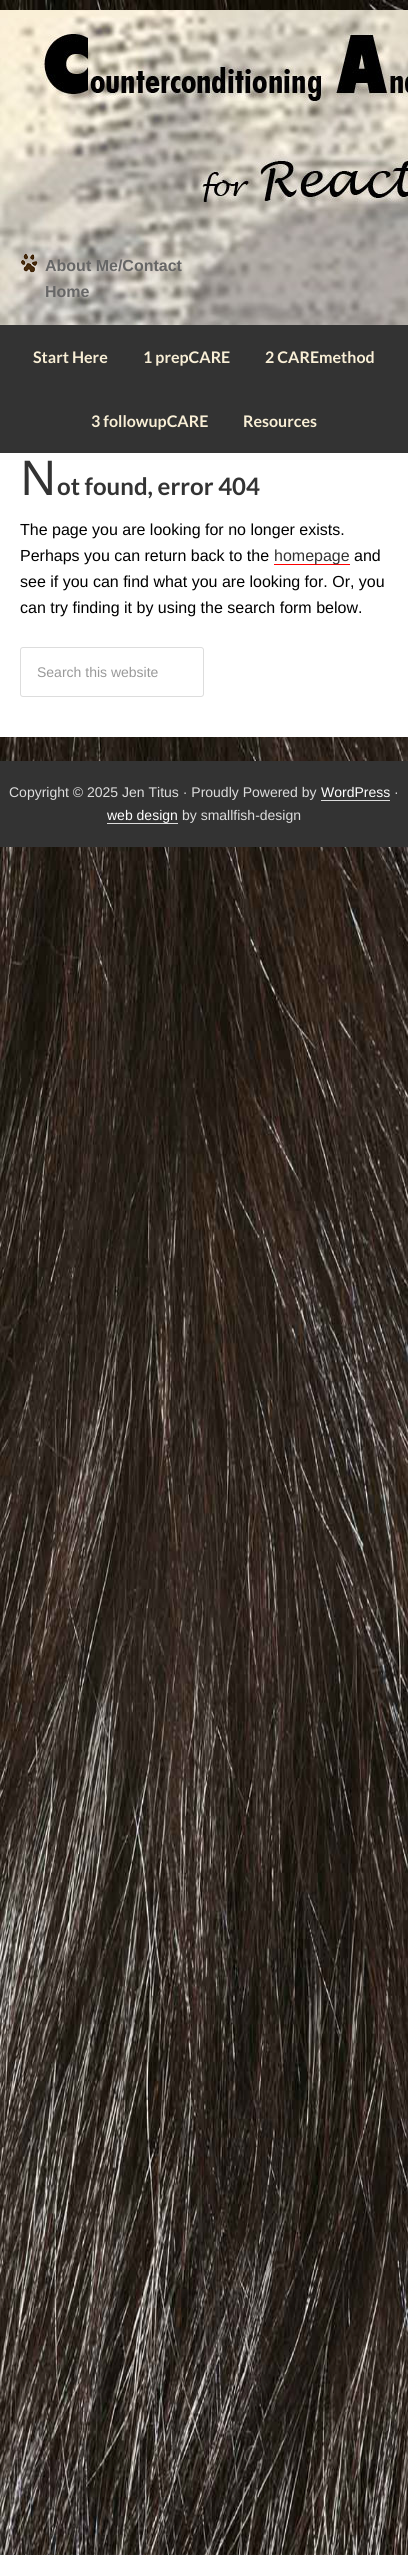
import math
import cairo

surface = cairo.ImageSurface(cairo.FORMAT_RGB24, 408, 2555)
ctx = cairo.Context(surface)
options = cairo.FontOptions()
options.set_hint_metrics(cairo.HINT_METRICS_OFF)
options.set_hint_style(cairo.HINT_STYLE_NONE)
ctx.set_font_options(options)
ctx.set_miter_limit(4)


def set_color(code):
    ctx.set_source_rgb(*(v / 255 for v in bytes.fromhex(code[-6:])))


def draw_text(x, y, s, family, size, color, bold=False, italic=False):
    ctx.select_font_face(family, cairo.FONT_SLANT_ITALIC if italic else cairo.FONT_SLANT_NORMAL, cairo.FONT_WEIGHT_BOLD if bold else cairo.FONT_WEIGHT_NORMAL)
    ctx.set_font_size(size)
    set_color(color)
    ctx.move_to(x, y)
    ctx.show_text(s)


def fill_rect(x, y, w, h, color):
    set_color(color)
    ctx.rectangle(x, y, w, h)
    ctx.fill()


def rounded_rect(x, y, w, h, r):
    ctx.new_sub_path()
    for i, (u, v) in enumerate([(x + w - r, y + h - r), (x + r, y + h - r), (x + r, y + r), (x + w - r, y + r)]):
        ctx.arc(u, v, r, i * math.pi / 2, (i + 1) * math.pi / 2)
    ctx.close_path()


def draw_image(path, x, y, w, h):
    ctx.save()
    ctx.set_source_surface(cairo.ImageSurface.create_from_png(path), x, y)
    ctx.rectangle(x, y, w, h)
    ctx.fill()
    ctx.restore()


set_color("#ffffff")
ctx.paint()
draw_image("assets/img1.png", 0, 0, 408, 2555)
draw_image("assets/img2.png", 0, 10, 408, 315)
draw_image("assets/img3.png", 20, 253, 18, 20)
draw_text(45, 271, "About Me/Contact", "Liberation Sans", 16, "#666666", bold=True)
draw_text(45, 297, "Home", "Liberation Sans", 16, "#666666", bold=True)
fill_rect(0, 325, 408, 128, "#333333")
draw_text(33, 363, "Start Here", "Lato", 16, "#f9efd6", bold=True)
draw_text(143, 363, "1 prepCARE", "Lato", 16, "#f9efd6", bold=True)
draw_text(265, 363, "2 CAREmethod", "Lato", 16, "#f9efd6", bold=True)
draw_text(91, 427, "3 followupCARE", "Lato", 16, "#f9efd6", bold=True)
draw_text(243, 427, "Resources", "Lato", 16, "#f9efd6", bold=True)
fill_rect(0, 453, 408, 284, "#ffffff")
draw_text(20, 495, "N", "Noto Sans", 48, "#333333")
draw_text(57, 495, "ot found, error 404", "Lato", 24, "#333333", bold=True)
draw_text(20, 535, "The page you are looking for no longer exists.", "Liberation Sans", 16, "#000000")
draw_text(20, 561, "Perhaps you can return back to the", "Liberation Sans", 16, "#000000")
fill_rect(274, 564, 76, 1, "#fe0000")
draw_text(274, 561, "homepage", "Liberation Sans", 16, "#333333")
draw_text(354, 561, "and", "Liberation Sans", 16, "#000000")
draw_text(20, 587, "see if you can find what you are looking for. Or, you", "Liberation Sans", 16, "#000000")
draw_text(20, 613, "can try finding it by using the search form below.", "Liberation Sans", 16, "#000000")
rounded_rect(20.5, 647.5, 183, 49, 2.5)
set_color("#dddddd")
ctx.set_line_width(1)
ctx.stroke()
draw_text(37, 677, "Search this website", "Liberation Sans", 14, "#999999")
fill_rect(0, 761, 408, 86, "#333333")
draw_text(9, 797, "Copyright © 2025 Jen Titus · Proudly Powered by", "Liberation Sans", 14, "#dddddd")
draw_text(321, 797, "WordPress", "Liberation Sans", 14, "#ffffff")
fill_rect(321, 800, 69, 1, "#dddddd")
draw_text(394, 797, "·", "Liberation Sans", 14, "#dddddd")
draw_text(107, 820, "web design", "Liberation Sans", 14, "#ffffff")
fill_rect(107, 823, 71, 1, "#dddddd")
draw_text(182, 820, "by smallfish-design", "Liberation Sans", 14, "#dddddd")
surface.write_to_png("output.png")
